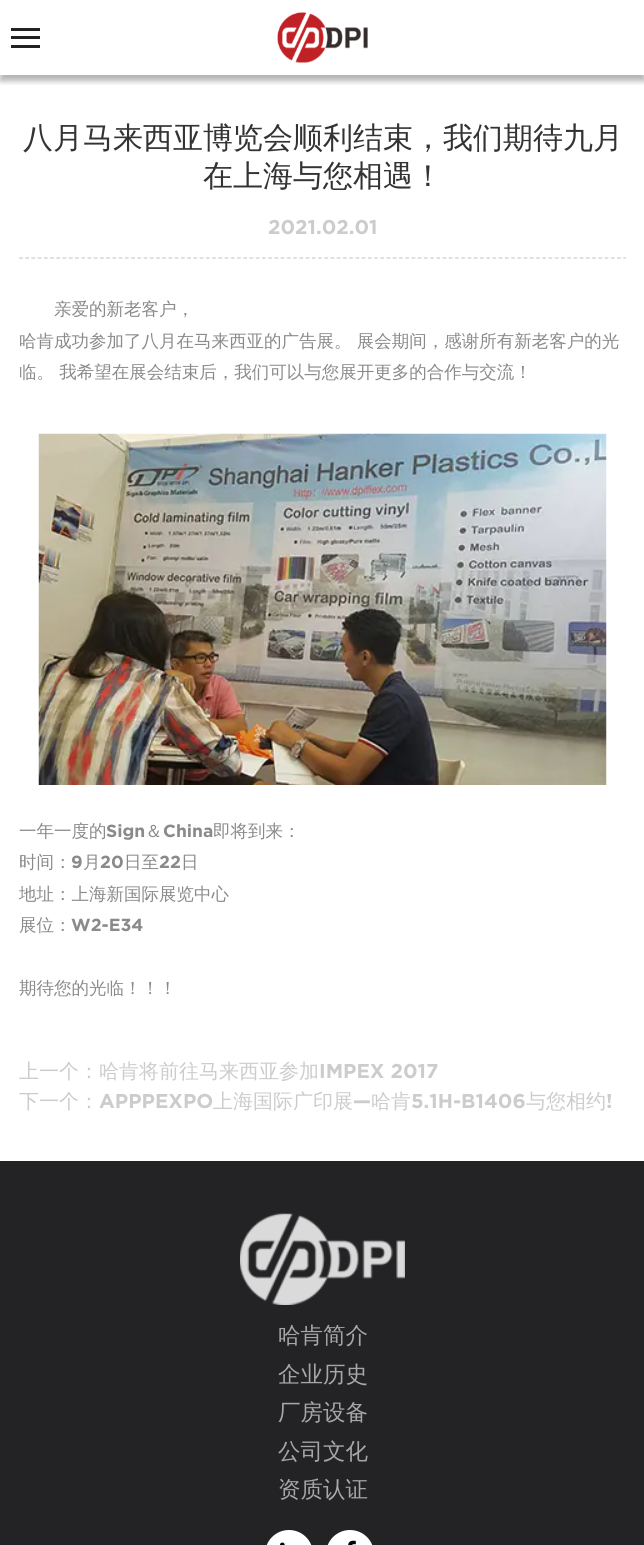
import math
import cairo

surface = cairo.ImageSurface(cairo.FORMAT_RGB24, 644, 1545)
ctx = cairo.Context(surface)
options = cairo.FontOptions()
options.set_hint_metrics(cairo.HINT_METRICS_OFF)
options.set_hint_style(cairo.HINT_STYLE_NONE)
ctx.set_font_options(options)
ctx.set_miter_limit(4)


def set_color(code):
    ctx.set_source_rgb(*(v / 255 for v in bytes.fromhex(code[-6:])))


def draw_text(x, y, s, family, size, color, bold=False, italic=False):
    ctx.select_font_face(family, cairo.FONT_SLANT_ITALIC if italic else cairo.FONT_SLANT_NORMAL, cairo.FONT_WEIGHT_BOLD if bold else cairo.FONT_WEIGHT_NORMAL)
    ctx.set_font_size(size)
    set_color(color)
    ctx.move_to(x, y)
    ctx.show_text(s)


def fill_rect(x, y, w, h, color):
    set_color(color)
    ctx.rectangle(x, y, w, h)
    ctx.fill()


def rounded_rect(x, y, w, h, r):
    ctx.new_sub_path()
    for i, (u, v) in enumerate([(x + w - r, y + h - r), (x + r, y + h - r), (x + r, y + r), (x + w - r, y + r)]):
        ctx.arc(u, v, r, i * math.pi / 2, (i + 1) * math.pi / 2)
    ctx.close_path()


def draw_shadow(x, y, w, h, r, blur, alpha):
    ctx.push_group_with_content(cairo.CONTENT_ALPHA)
    ctx.set_operator(cairo.OPERATOR_SOURCE)
    for i in range(15, -16, -2):
        e = blur * i / 6
        if min(w, h) + 2 * e > 0:
            ctx.set_source_rgba(0, 0, 0, alpha * math.erfc((i - 1) / 8.5) / 2)
            rounded_rect(x - e, y - e, w + 2 * e, h + 2 * e, max(0, min(r + e + blur * .6, min(w, h) / 2 + e)))
            ctx.fill()
    ctx.mask(ctx.pop_group())


def draw_image(path, x, y, w, h):
    ctx.save()
    ctx.set_source_surface(cairo.ImageSurface.create_from_png(path), x, y)
    ctx.rectangle(x, y, w, h)
    ctx.fill()
    ctx.restore()


set_color("#ffffff")
ctx.paint()
ctx.save()
ctx.rectangle(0, 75, 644, 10)
ctx.clip()
set_color("#000000")
draw_shadow(0, 6, 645, 75, 0, 3, 0.3)
ctx.restore()
draw_image("assets/img1.png", 277, 12, 91, 51)
fill_rect(11, 28, 29, 3, "#222222")
fill_rect(11, 36, 29, 3, "#222222")
fill_rect(11, 45, 29, 3, "#222222")
draw_text(23, 148, "八月马来西亚博览会顺利结束，我们期待九月", "WenQuanYi Zen Hei Medium", 30, "#333333")
draw_text(203, 186, "在上海与您相遇！", "WenQuanYi Zen Hei Medium", 30, "#333333")
ctx.new_path()
ctx.move_to(19, 258)
ctx.line_to(626, 258)
set_color("#cccccc")
ctx.set_line_width(1.2)
ctx.set_dash([3.75, 2.48])
ctx.stroke()
draw_text(268, 234, "2021.02.01", "Gotham", 20, "#cccccc", bold=True)
draw_text(54, 315, "亲爱的新老客户，", "WenQuanYi Zen Hei Medium", 17.5, "#8a8a8a")
draw_text(19, 347, "哈肯成功参加了八月在马来西亚的广告展。 展会期间，感谢所有新老客户的光", "WenQuanYi Zen Hei Medium", 17.5, "#8a8a8a")
draw_text(19, 378, "临。 我希望在展会结束后，我们可以与您展开更多的合作与交流！", "WenQuanYi Zen Hei Medium", 17.5, "#8a8a8a")
draw_image("assets/img2.png", 38, 433, 569, 352)
draw_text(19, 837, "一年一度的", "WenQuanYi Zen Hei Medium", 17.5, "#8a8a8a")
draw_text(106, 837, "Sign", "Gotham", 17.5, "#8a8a8a", bold=True)
draw_text(145, 837, "＆", "WenQuanYi Zen Hei Medium", 17.5, "#8a8a8a")
draw_text(163, 837, "China", "Gotham", 17.5, "#8a8a8a", bold=True)
draw_text(213, 837, "即将到来：", "WenQuanYi Zen Hei Medium", 17.5, "#8a8a8a")
draw_text(19, 868, "时间：", "WenQuanYi Zen Hei Medium", 17.5, "#8a8a8a")
draw_text(71, 868, "9", "Gotham", 17.5, "#8a8a8a", bold=True)
draw_text(83, 868, "月", "WenQuanYi Zen Hei Medium", 17.5, "#8a8a8a")
draw_text(100, 868, "20", "Gotham", 17.5, "#8a8a8a", bold=True)
draw_text(124, 868, "日至", "WenQuanYi Zen Hei Medium", 17.5, "#8a8a8a")
draw_text(159, 868, "22", "Gotham", 17.5, "#8a8a8a", bold=True)
draw_text(181, 868, "日", "WenQuanYi Zen Hei Medium", 17.5, "#8a8a8a")
draw_text(19, 900, "地址：上海新国际展览中心", "WenQuanYi Zen Hei Medium", 17.5, "#8a8a8a")
draw_text(19, 931, "展位：", "WenQuanYi Zen Hei Medium", 17.5, "#8a8a8a")
draw_text(71, 931, "W2-E34", "Gotham", 17.5, "#8a8a8a", bold=True)
draw_text(19, 994, "期待您的光临！！！", "WenQuanYi Zen Hei Medium", 17.5, "#8a8a8a")
draw_text(19, 1078, "上一个：哈肯将前往马来西亚参加", "WenQuanYi Zen Hei Medium", 20, "#cccccc")
draw_text(319, 1078, "IMPEX 2017", "Gotham", 20, "#cccccc", bold=True)
draw_text(19, 1108, "下一个：", "WenQuanYi Zen Hei Medium", 20, "#cccccc")
draw_text(99, 1108, "APPPEXPO", "Gotham", 20, "#cccccc", bold=True)
draw_text(213, 1108, "上海国际广印展", "WenQuanYi Zen Hei Medium", 20, "#cccccc")
draw_text(353, 1108, "—", "Gotham", 20, "#cccccc", bold=True)
draw_text(371, 1108, "哈肯", "WenQuanYi Zen Hei Medium", 20, "#cccccc")
draw_text(411, 1108, "5.1H-B1406", "Gotham", 20, "#cccccc", bold=True)
draw_text(526, 1108, "与您相约", "WenQuanYi Zen Hei Medium", 20, "#cccccc")
draw_text(606, 1108, "!", "Gotham", 20, "#cccccc", bold=True)
fill_rect(0, 1161, 644, 384, "#232325")
draw_image("assets/img3.png", 240, 1213, 165, 92)
draw_text(278, 1343, "哈肯简介", "WenQuanYi Zen Hei Medium", 22.5, "#a7a7a8")
draw_text(278, 1382, "企业历史", "WenQuanYi Zen Hei Medium", 22.5, "#a7a7a8")
draw_text(278, 1420, "厂房设备", "WenQuanYi Zen Hei Medium", 22.5, "#a7a7a8")
draw_text(278, 1459, "公司文化", "WenQuanYi Zen Hei Medium", 22.5, "#a7a7a8")
draw_text(278, 1497, "资质认证", "WenQuanYi Zen Hei Medium", 22.5, "#a7a7a8")
set_color("#ffffff")
rounded_rect(265, 1530, 48, 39, 24)
ctx.fill()
draw_image("assets/img4.png", 280, 1542, 5, 3)
rounded_rect(326, 1530, 48, 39, 24)
ctx.fill()
draw_image("assets/img5.png", 348, 1540, 8, 5)
surface.write_to_png("output.png")
